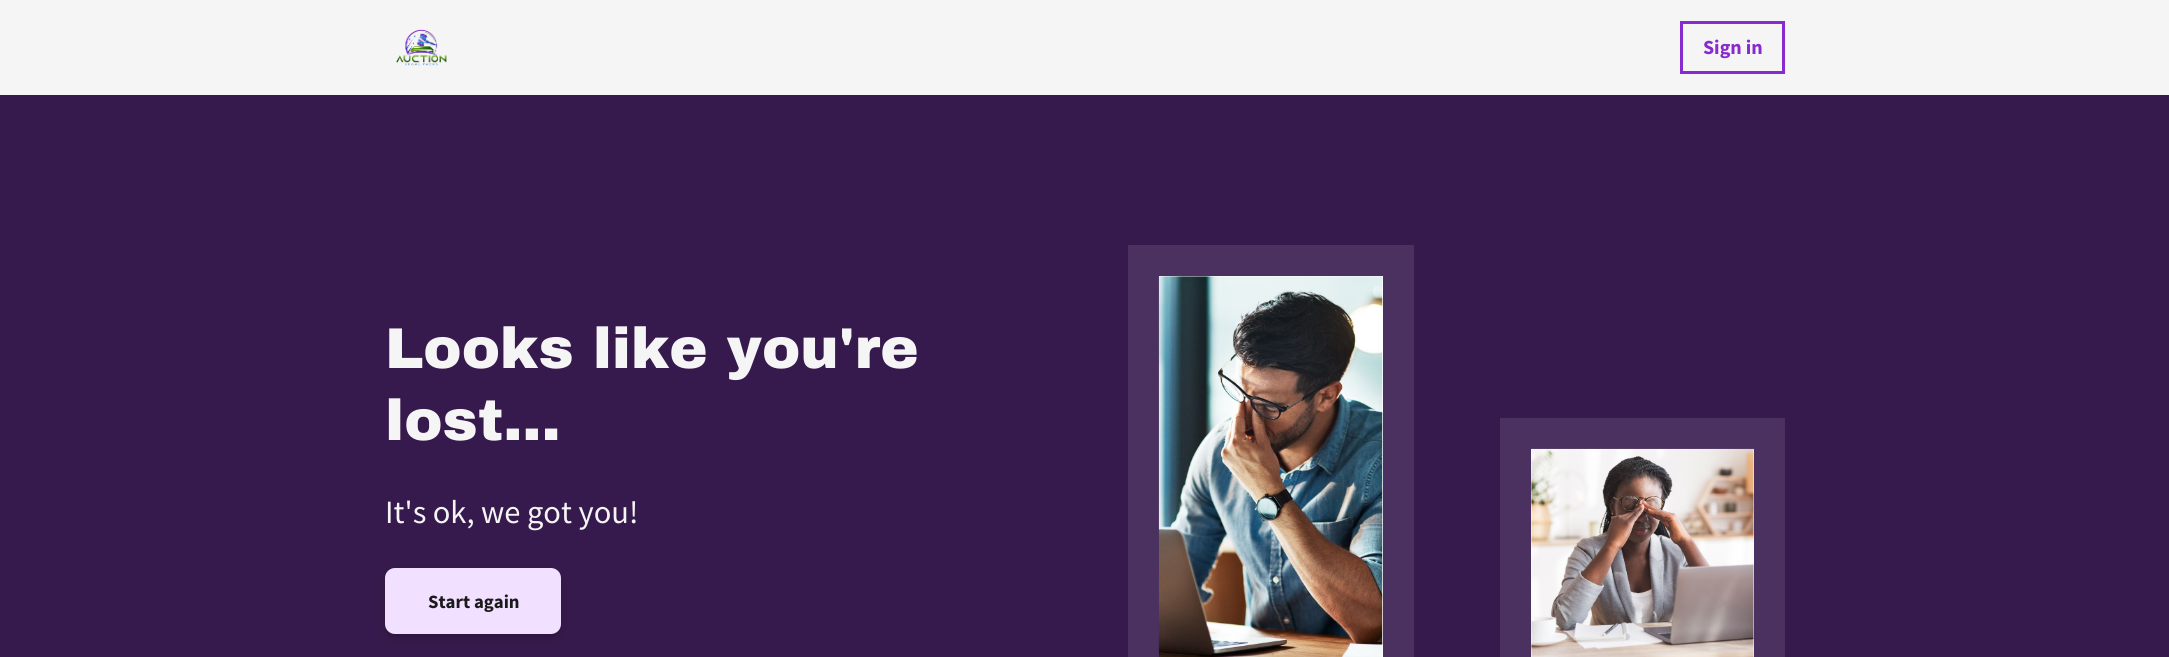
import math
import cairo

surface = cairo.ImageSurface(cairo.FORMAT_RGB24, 2169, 657)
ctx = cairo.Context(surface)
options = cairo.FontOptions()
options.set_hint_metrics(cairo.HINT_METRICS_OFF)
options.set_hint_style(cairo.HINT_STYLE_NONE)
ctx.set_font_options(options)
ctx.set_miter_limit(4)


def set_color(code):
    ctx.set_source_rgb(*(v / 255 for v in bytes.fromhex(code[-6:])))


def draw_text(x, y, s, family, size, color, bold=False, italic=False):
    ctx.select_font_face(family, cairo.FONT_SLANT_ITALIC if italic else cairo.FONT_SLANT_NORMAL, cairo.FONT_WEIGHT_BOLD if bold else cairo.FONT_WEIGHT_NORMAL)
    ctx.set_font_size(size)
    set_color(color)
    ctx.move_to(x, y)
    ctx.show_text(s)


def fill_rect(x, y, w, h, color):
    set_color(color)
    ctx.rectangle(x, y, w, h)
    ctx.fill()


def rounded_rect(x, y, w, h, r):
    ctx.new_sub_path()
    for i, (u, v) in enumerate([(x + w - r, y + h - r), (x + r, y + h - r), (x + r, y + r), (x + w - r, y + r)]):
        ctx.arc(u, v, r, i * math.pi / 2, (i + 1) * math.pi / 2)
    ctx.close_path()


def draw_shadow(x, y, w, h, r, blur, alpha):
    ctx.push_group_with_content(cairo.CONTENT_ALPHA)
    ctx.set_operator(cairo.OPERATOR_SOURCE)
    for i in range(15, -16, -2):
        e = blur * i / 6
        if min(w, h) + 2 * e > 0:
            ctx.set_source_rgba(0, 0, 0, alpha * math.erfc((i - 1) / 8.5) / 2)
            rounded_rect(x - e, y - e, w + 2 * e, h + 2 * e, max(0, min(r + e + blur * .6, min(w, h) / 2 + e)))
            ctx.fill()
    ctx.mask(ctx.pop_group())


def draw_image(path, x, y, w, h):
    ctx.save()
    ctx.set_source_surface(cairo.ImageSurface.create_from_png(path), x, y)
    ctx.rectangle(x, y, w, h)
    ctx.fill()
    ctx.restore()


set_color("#371a4d")
ctx.paint()
fill_rect(0, 0, 2169, 95, "#f5f5f5")
draw_image("assets/img1.png", 396, 29, 51, 37)
ctx.rectangle(1681.5, 22.5, 102, 50)
set_color("#882bce")
ctx.set_line_width(3)
ctx.stroke()
draw_text(1703, 54, "Sign in", "Source Sans Pro", 20, "#882bce", bold=True)
draw_text(385, 368, "Looks like you're", "Archivo Black Black", 57.5, "#f5f5f5")
draw_text(385, 440, "lost...", "Archivo Black Black", 57.5, "#f5f5f5")
draw_text(385, 523, "It's ok, we got you!", "Source Sans Pro", 32.5, "#f5f5f5")
set_color("#000000")
draw_shadow(385, 571, 176, 67, 10, 4.5, 0.2)
set_color("#f1e0ff")
rounded_rect(385, 568, 176, 66, 10)
ctx.fill()
draw_text(428, 608, "Start again", "Source Sans Pro", 18.75, "#1c1b1c", bold=True)
ctx.rectangle(1143.5, 260.5, 255, 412)
set_color("#4b315f")
ctx.set_line_width(31)
ctx.stroke()
fill_rect(1159, 276, 224, 381, "#ffffff")
draw_image("assets/img2.png", 1158, 276, 225, 381)
ctx.rectangle(1515.5, 433.5, 254, 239)
set_color("#4b315f")
ctx.stroke()
fill_rect(1531, 449, 223, 208, "#ffffff")
draw_image("assets/img3.png", 1531, 448, 223, 209)
surface.write_to_png("output.png")
